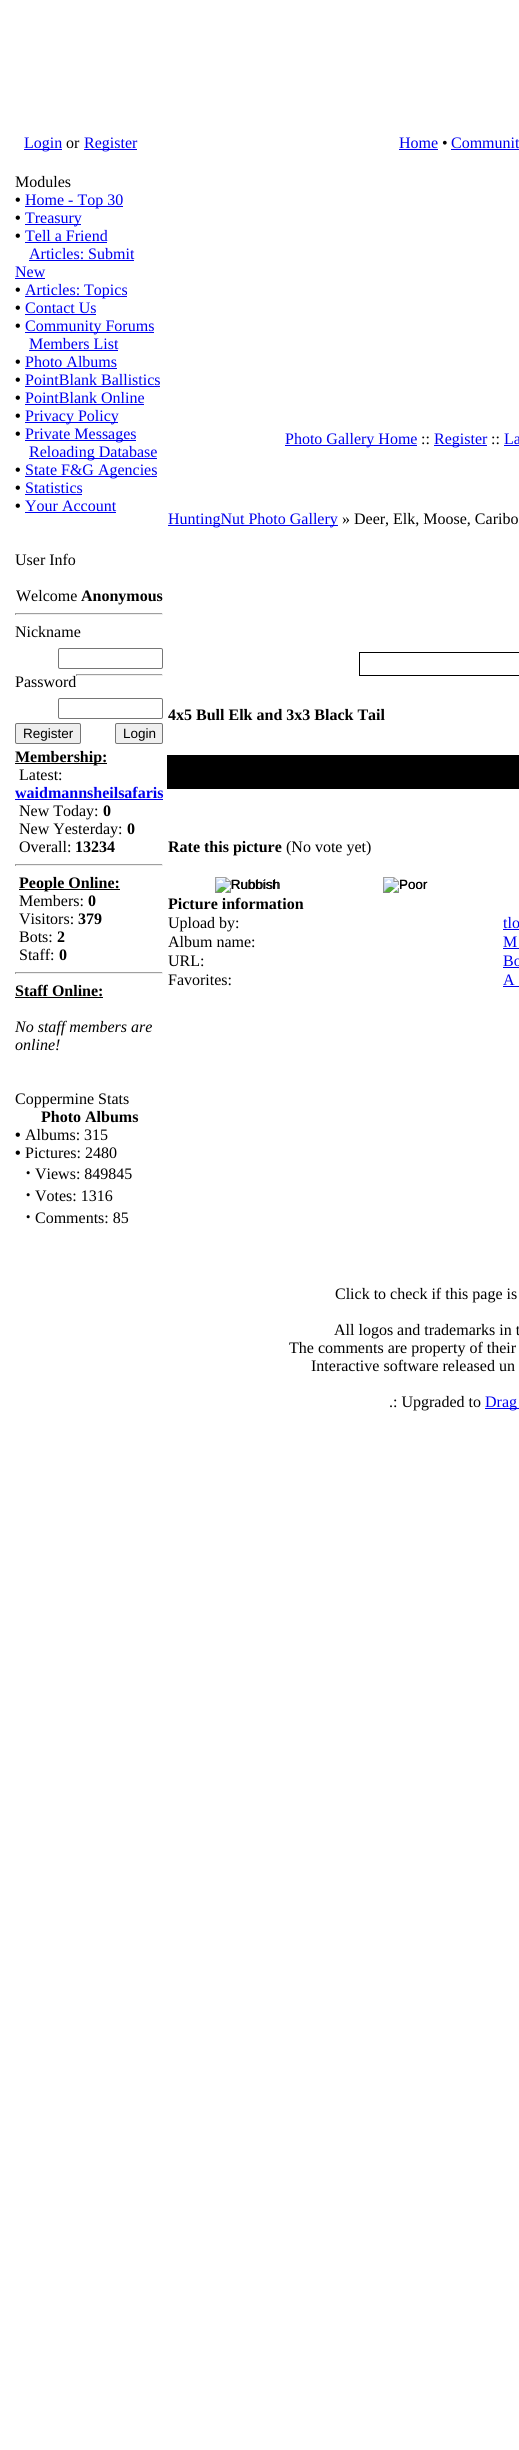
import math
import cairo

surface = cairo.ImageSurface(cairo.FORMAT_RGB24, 519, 2450)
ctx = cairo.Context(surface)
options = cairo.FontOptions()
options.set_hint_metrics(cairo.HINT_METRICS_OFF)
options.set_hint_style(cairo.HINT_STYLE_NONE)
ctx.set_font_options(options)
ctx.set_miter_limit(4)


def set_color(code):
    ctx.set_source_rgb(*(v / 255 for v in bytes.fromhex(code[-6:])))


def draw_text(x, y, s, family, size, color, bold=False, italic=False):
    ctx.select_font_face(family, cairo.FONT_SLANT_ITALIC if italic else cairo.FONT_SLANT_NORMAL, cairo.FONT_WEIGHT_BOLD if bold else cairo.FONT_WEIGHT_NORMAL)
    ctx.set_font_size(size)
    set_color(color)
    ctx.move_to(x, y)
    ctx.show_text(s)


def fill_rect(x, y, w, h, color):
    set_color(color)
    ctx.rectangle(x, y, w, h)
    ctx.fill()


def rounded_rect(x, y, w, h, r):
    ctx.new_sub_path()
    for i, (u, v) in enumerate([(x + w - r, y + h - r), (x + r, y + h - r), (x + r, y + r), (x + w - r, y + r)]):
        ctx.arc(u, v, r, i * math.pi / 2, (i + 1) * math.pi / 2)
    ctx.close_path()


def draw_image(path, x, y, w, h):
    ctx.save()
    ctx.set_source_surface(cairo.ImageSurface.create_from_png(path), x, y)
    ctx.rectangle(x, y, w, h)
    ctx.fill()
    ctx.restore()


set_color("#ffffff")
ctx.paint()
fill_rect(24, 149, 38, 1, "#0000ee")
draw_text(24, 148, "Login", "Liberation Serif", 16, "#0000ee")
draw_text(66, 148, "or", "Liberation Serif", 16, "#000000")
fill_rect(84, 149, 53, 1, "#0000ee")
draw_text(84, 148, "Register", "Liberation Serif", 16, "#0000ee")
draw_text(399, 148, "Home", "Liberation Serif", 16, "#0000ee")
fill_rect(399, 149, 39, 1, "#0000ee")
draw_text(442, 148, "•", "Liberation Serif", 16, "#000000")
draw_text(451, 148, "Communit", "Liberation Serif", 16, "#0000ee")
fill_rect(451, 149, 68, 1, "#0000ee")
draw_text(15, 187, "Modules", "Liberation Serif", 16, "#000000")
draw_text(15, 205, "•", "Liberation Serif", 16, "#000000", bold=True)
fill_rect(25, 206, 98, 1, "#0000ee")
draw_text(25, 205, "Home - Top 30", "Liberation Serif", 16, "#0000ee")
draw_text(15, 223, "•", "Liberation Serif", 16, "#000000", bold=True)
fill_rect(25, 224, 56, 1, "#0000ee")
draw_text(25, 223, "Treasury", "Liberation Serif", 16, "#0000ee")
draw_text(15, 241, "•", "Liberation Serif", 16, "#000000", bold=True)
draw_text(25, 241, "Tell a Friend", "Liberation Serif", 16, "#0000ee")
fill_rect(25, 242, 82, 1, "#0000ee")
draw_text(29, 259, "Articles: Submit", "Liberation Serif", 16, "#0000ee")
fill_rect(29, 260, 105, 1, "#0000ee")
draw_text(15, 277, "New", "Liberation Serif", 16, "#0000ee")
fill_rect(15, 278, 30, 1, "#0000ee")
draw_text(15, 295, "•", "Liberation Serif", 16, "#000000", bold=True)
fill_rect(25, 296, 102, 1, "#0000ee")
draw_text(25, 295, "Articles: Topics", "Liberation Serif", 16, "#0000ee")
draw_text(15, 313, "•", "Liberation Serif", 16, "#000000", bold=True)
draw_text(25, 313, "Contact Us", "Liberation Serif", 16, "#0000ee")
fill_rect(25, 314, 71, 1, "#0000ee")
draw_text(15, 331, "•", "Liberation Serif", 16, "#000000", bold=True)
fill_rect(25, 332, 129, 1, "#0000ee")
draw_text(25, 331, "Community Forums", "Liberation Serif", 16, "#0000ee")
draw_text(29, 349, "Members List", "Liberation Serif", 16, "#0000ee")
fill_rect(29, 350, 89, 1, "#0000ee")
draw_text(15, 367, "•", "Liberation Serif", 16, "#000000", bold=True)
draw_text(25, 367, "Photo Albums", "Liberation Serif", 16, "#0000ee")
fill_rect(25, 368, 92, 1, "#0000ee")
draw_text(15, 385, "•", "Liberation Serif", 16, "#000000", bold=True)
draw_text(25, 385, "PointBlank Ballistics", "Liberation Serif", 16, "#0000ee")
fill_rect(25, 386, 135, 1, "#0000ee")
draw_text(15, 403, "•", "Liberation Serif", 16, "#000000", bold=True)
draw_text(25, 403, "PointBlank Online", "Liberation Serif", 16, "#0000ee")
fill_rect(25, 404, 119, 1, "#0000ee")
draw_text(15, 421, "•", "Liberation Serif", 16, "#000000", bold=True)
fill_rect(25, 422, 93, 1, "#0000ee")
draw_text(25, 421, "Privacy Policy", "Liberation Serif", 16, "#0000ee")
draw_text(15, 439, "•", "Liberation Serif", 16, "#000000", bold=True)
fill_rect(25, 440, 111, 1, "#0000ee")
draw_text(25, 439, "Private Messages", "Liberation Serif", 16, "#0000ee")
fill_rect(29, 458, 128, 1, "#0000ee")
draw_text(29, 457, "Reloading Database", "Liberation Serif", 16, "#0000ee")
draw_text(15, 475, "•", "Liberation Serif", 16, "#000000", bold=True)
fill_rect(25, 476, 132, 1, "#0000ee")
draw_text(25, 475, "State F&G Agencies", "Liberation Serif", 16, "#0000ee")
draw_text(15, 493, "•", "Liberation Serif", 16, "#000000", bold=True)
draw_text(25, 493, "Statistics", "Liberation Serif", 16, "#0000ee")
fill_rect(25, 494, 57, 1, "#0000ee")
draw_text(15, 511, "•", "Liberation Serif", 16, "#000000", bold=True)
draw_text(25, 511, "Your Account", "Liberation Serif", 16, "#0000ee")
fill_rect(25, 512, 91, 1, "#0000ee")
draw_text(15, 565, "User Info", "Liberation Serif", 16, "#000000")
draw_text(16, 601, "Welcome", "Liberation Serif", 16, "#000000")
draw_text(81, 601, "Anonymous", "Liberation Serif", 16, "#000000", bold=True)
fill_rect(15, 613, 148, 1, "#9f9f9f")
fill_rect(162, 613, 1, 2, "#eeeeee")
fill_rect(15, 614, 148, 1, "#eeeeee")
fill_rect(15, 613, 1, 2, "#9f9f9f")
draw_text(15, 637, "Nickname", "Liberation Serif", 16, "#000000")
rounded_rect(58.5, 648.5, 104, 20, 1.5)
set_color("#767676")
ctx.set_line_width(1)
ctx.stroke()
draw_text(15, 687, "Password", "Liberation Serif", 16, "#000000")
rounded_rect(58.5, 698.5, 104, 20, 1.5)
set_color("#767676")
ctx.stroke()
set_color("#efefef")
rounded_rect(15.5, 723.5, 65, 20, 1.5)
ctx.fill_preserve()
set_color("#767676")
ctx.stroke()
draw_text(23, 738, "Register", "Liberation Sans", 13.5, "#000000")
set_color("#efefef")
rounded_rect(115.5, 723.5, 47, 20, 1.5)
ctx.fill_preserve()
set_color("#767676")
ctx.stroke()
draw_text(123, 738, "Login", "Liberation Sans", 13.5, "#000000")
fill_rect(76, 674, 87, 1, "#9f9f9f")
fill_rect(162, 674, 1, 2, "#eeeeee")
fill_rect(76, 675, 87, 1, "#eeeeee")
fill_rect(76, 674, 1, 2, "#9f9f9f")
fill_rect(15, 763, 92, 1, "#000000")
draw_text(15, 762, "Membership:", "Liberation Serif", 16, "#000000", bold=True)
draw_text(19, 780, "Latest:", "Liberation Serif", 16, "#000000")
draw_text(15, 798, "waidmannsheilsafaris", "Liberation Serif", 16, "#0000ee", bold=True)
fill_rect(15, 799, 148, 1, "#0000ee")
draw_text(19, 816, "New Today:", "Liberation Serif", 16, "#000000")
draw_text(103, 816, "0", "Liberation Serif", 16, "#000000", bold=True)
draw_text(19, 834, "New Yesterday:", "Liberation Serif", 16, "#000000")
draw_text(127, 834, "0", "Liberation Serif", 16, "#000000", bold=True)
draw_text(19, 852, "Overall:", "Liberation Serif", 16, "#000000")
draw_text(75, 852, "13234", "Liberation Serif", 16, "#000000", bold=True)
fill_rect(15, 864, 148, 1, "#9f9f9f")
fill_rect(162, 864, 1, 2, "#eeeeee")
fill_rect(15, 865, 148, 1, "#eeeeee")
fill_rect(15, 864, 1, 2, "#9f9f9f")
fill_rect(19, 889, 101, 1, "#000000")
draw_text(19, 888, "People Online:", "Liberation Serif", 16, "#000000", bold=True)
draw_text(19, 906, "Members:", "Liberation Serif", 16, "#000000")
draw_text(88, 906, "0", "Liberation Serif", 16, "#000000", bold=True)
draw_text(19, 924, "Visitors:", "Liberation Serif", 16, "#000000")
draw_text(78, 924, "379", "Liberation Serif", 16, "#000000", bold=True)
draw_text(19, 942, "Bots:", "Liberation Serif", 16, "#000000")
draw_text(57, 942, "2", "Liberation Serif", 16, "#000000", bold=True)
draw_text(19, 960, "Staff:", "Liberation Serif", 16, "#000000")
draw_text(59, 960, "0", "Liberation Serif", 16, "#000000", bold=True)
fill_rect(15, 972, 148, 1, "#9f9f9f")
fill_rect(162, 972, 1, 2, "#eeeeee")
fill_rect(15, 973, 148, 1, "#eeeeee")
fill_rect(15, 972, 1, 2, "#9f9f9f")
draw_text(15, 996, "Staff Online:", "Liberation Serif", 16, "#000000", bold=True)
fill_rect(15, 997, 88, 1, "#000000")
draw_text(15, 1032, "No staff members are", "Liberation Serif", 16, "#000000", italic=True)
draw_text(15, 1050, "online!", "Liberation Serif", 16, "#000000", italic=True)
draw_text(15, 1104, "Coppermine Stats", "Liberation Serif", 16, "#000000")
draw_text(41, 1122, "Photo Albums", "Liberation Serif", 16, "#000000", bold=True)
draw_text(15, 1140, "•", "Liberation Serif", 16, "#000000", bold=True)
draw_text(25, 1140, "Albums: 315", "Liberation Serif", 16, "#000000")
draw_text(15, 1158, "•", "Liberation Serif", 16, "#000000", bold=True)
draw_text(25, 1158, "Pictures: 2480", "Liberation Serif", 16, "#000000")
draw_text(25, 1179, "·", "Liberation Serif", 19, "#000000", bold=True)
draw_text(35, 1179, "Views: 849845", "Liberation Serif", 16, "#000000")
draw_text(25, 1201, "·", "Liberation Serif", 19, "#000000", bold=True)
draw_text(35, 1201, "Votes: 1316", "Liberation Serif", 16, "#000000")
draw_text(25, 1223, "·", "Liberation Serif", 19, "#000000", bold=True)
draw_text(35, 1223, "Comments: 85", "Liberation Serif", 16, "#000000")
fill_rect(285, 445, 132, 1, "#0000ee")
draw_text(285, 444, "Photo Gallery Home", "Liberation Serif", 16, "#0000ee")
draw_text(421, 444, "::", "Liberation Serif", 16, "#000000")
fill_rect(434, 445, 53, 1, "#0000ee")
draw_text(434, 444, "Register", "Liberation Serif", 16, "#0000ee")
draw_text(491, 444, "::", "Liberation Serif", 16, "#000000")
draw_text(504, 444, "La", "Liberation Serif", 16, "#0000ee")
fill_rect(504, 445, 15, 1, "#0000ee")
fill_rect(168, 525, 170, 1, "#0000ee")
draw_text(168, 524, "HuntingNut Photo Gallery", "Liberation Serif", 16, "#0000ee")
draw_text(342, 524, "» Deer, Elk, Moose, Caribo", "Liberation Serif", 16, "#000000")
ctx.rectangle(359.5, 652.5, 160, 23)
ctx.stroke()
draw_text(168, 720, "4x5 Bull Elk and 3x3 Black Tail", "Liberation Serif", 16, "#000000", bold=True)
fill_rect(167, 755, 352, 34, "#000000")
draw_text(168, 852, "Rate this picture", "Liberation Serif", 16, "#000000", bold=True)
draw_text(286, 852, "(No vote yet)", "Liberation Serif", 16, "#000000")
draw_image("assets/img1.png", 215, 877, 64, 16)
draw_text(231, 889, "Rubbish", "Liberation Sans", 13.5, "#000000")
draw_image("assets/img2.png", 383, 877, 44, 16)
draw_text(399, 889, "Poor", "Liberation Sans", 13.5, "#000000")
draw_text(168, 909, "Picture information", "Liberation Serif", 16, "#000000", bold=True)
draw_text(168, 928, "Upload by:", "Liberation Serif", 16, "#000000")
draw_text(503, 928, "tlo", "Liberation Serif", 16, "#0000ee")
fill_rect(503, 929, 16, 1, "#0000ee")
draw_text(168, 947, "Album name:", "Liberation Serif", 16, "#000000")
draw_text(503, 947, "M", "Liberation Serif", 16, "#0000ee")
fill_rect(503, 948, 16, 1, "#0000ee")
draw_text(168, 966, "URL:", "Liberation Serif", 16, "#000000")
draw_text(503, 966, "Bo", "Liberation Serif", 16, "#0000ee")
fill_rect(503, 967, 16, 1, "#0000ee")
draw_text(168, 985, "Favorites:", "Liberation Serif", 16, "#000000")
draw_text(503, 985, "A", "Liberation Serif", 16, "#0000ee")
fill_rect(503, 986, 16, 1, "#0000ee")
draw_text(335, 1299, "Click to check if this page is", "Liberation Serif", 16, "#000000")
draw_text(334, 1335, "All logos and trademarks in t", "Liberation Serif", 16, "#000000")
draw_text(289, 1353, "The comments are property of their", "Liberation Serif", 16, "#000000")
draw_text(311, 1371, "Interactive software released un", "Liberation Serif", 16, "#000000")
draw_text(389, 1407, ".: Upgraded to", "Liberation Serif", 16, "#000000")
fill_rect(485, 1408, 34, 1, "#0000ee")
draw_text(485, 1407, "Drag", "Liberation Serif", 16, "#0000ee")
surface.write_to_png("output.png")
